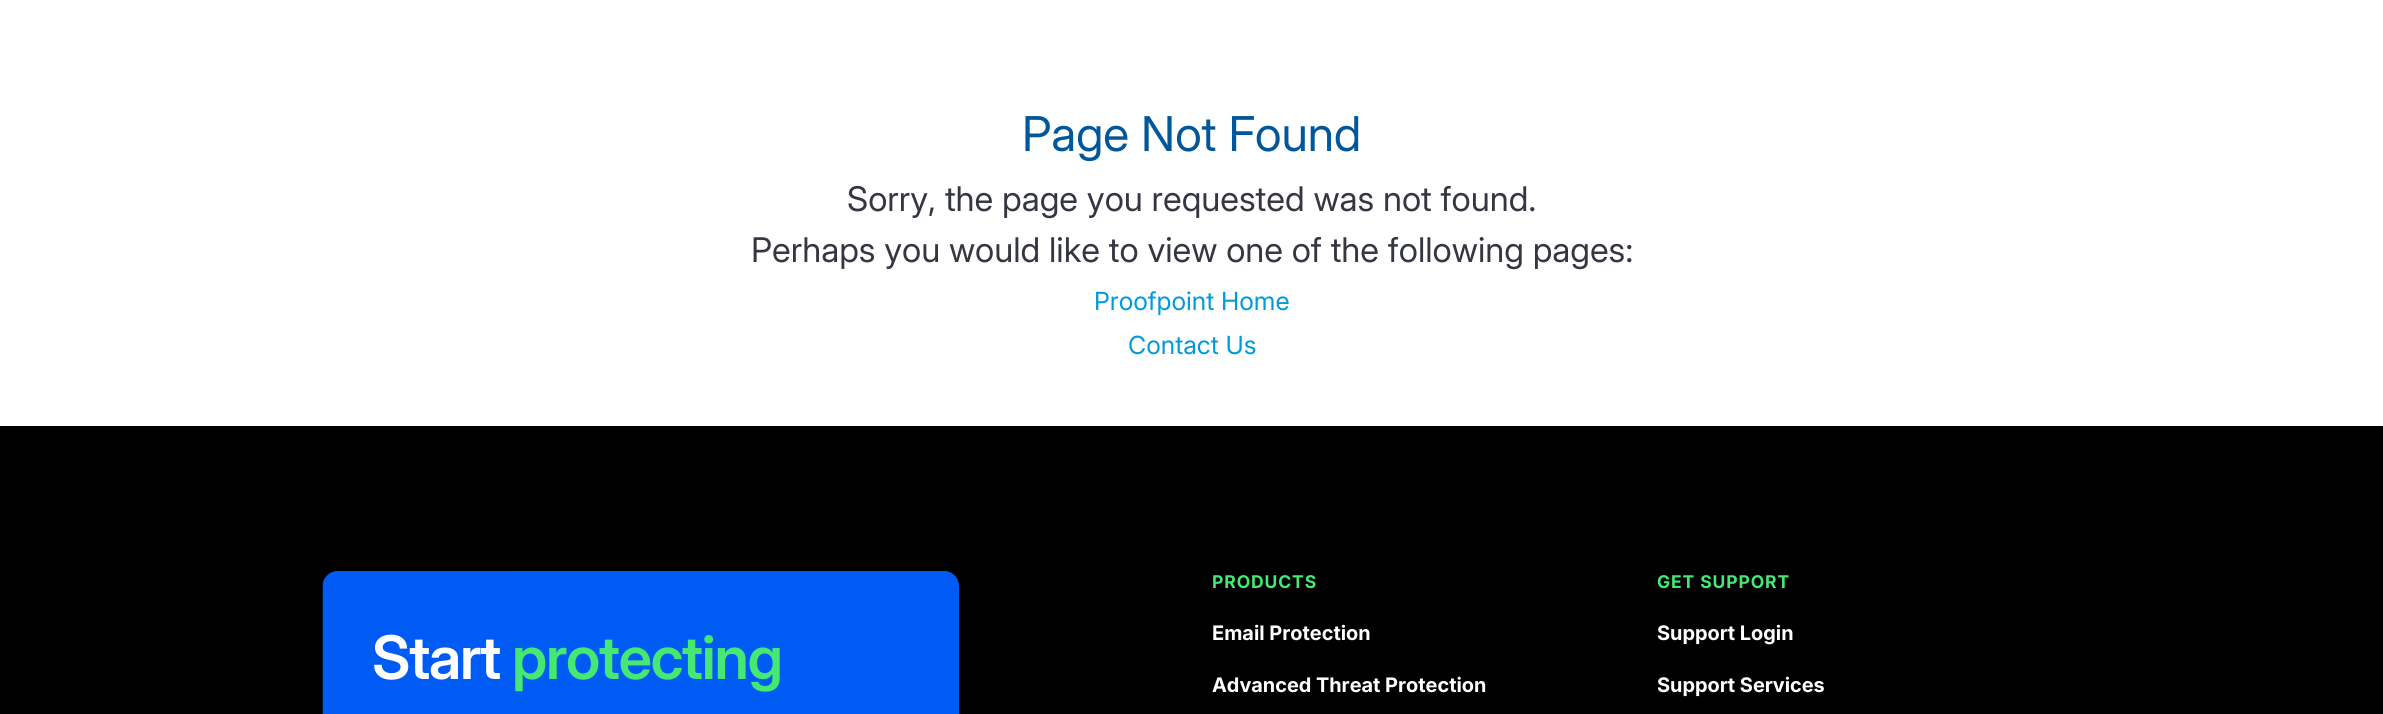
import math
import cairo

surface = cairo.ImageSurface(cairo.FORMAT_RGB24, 2383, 714)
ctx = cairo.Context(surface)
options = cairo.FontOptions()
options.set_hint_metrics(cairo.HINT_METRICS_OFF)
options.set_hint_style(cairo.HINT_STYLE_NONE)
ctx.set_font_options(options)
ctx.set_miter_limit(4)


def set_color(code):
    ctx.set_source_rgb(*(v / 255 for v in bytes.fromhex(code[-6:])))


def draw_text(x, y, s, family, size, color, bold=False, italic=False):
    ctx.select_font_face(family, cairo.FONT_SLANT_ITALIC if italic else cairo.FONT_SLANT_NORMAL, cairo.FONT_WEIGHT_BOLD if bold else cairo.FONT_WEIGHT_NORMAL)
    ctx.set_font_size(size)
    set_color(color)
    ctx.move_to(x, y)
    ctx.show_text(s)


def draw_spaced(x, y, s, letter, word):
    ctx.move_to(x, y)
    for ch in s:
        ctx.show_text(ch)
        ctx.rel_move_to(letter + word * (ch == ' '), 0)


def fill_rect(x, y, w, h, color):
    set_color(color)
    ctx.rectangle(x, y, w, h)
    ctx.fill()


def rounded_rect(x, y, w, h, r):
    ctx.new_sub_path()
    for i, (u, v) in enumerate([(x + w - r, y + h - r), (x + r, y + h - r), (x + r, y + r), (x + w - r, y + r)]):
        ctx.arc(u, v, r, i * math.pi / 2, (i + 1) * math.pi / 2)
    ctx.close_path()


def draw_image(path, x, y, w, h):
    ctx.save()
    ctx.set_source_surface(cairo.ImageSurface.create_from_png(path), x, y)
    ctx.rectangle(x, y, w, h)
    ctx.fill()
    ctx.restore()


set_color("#ffffff")
ctx.paint()
draw_text(1022, 151, "Page Not Found", "Inter", 48, "#01579b")
draw_text(847, 211, "Sorry, the page you requested was not found.", "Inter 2", 34, "#343741")
draw_text(751, 262, "Perhaps you would like to view one of the following pages:", "Inter 2", 34, "#343741")
draw_text(1094, 310, "Proofpoint Home", "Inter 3", 25, "#009ada")
draw_text(1128, 354, "Contact Us", "Inter 3", 25, "#009ada")
fill_rect(0, 426, 2383, 288, "#000000")
set_color("#035bfb")
rounded_rect(323, 571, 636, 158, 15)
ctx.fill()
draw_image("assets/img1.png", 322, 571, 637, 143)
ctx.select_font_face("Inter SemiBold")
ctx.set_font_size(60)
set_color("#ffffff")
draw_spaced(372, 679, "Start", -1.25, 0)
set_color("#46e874")
draw_spaced(512, 679, "protecting", -1.25, 0)
ctx.select_font_face("Inter 2", cairo.FONT_SLANT_NORMAL, cairo.FONT_WEIGHT_BOLD)
ctx.set_font_size(17.5)
draw_spaced(1212, 588, "PRODUCTS", 0.9, 0)
draw_text(1212, 640, "Email Protection", "Inter", 20, "#ffffff", bold=True)
draw_text(1212, 692, "Advanced Threat Protection", "Inter", 20, "#ffffff", bold=True)
ctx.select_font_face("Inter 2", cairo.FONT_SLANT_NORMAL, cairo.FONT_WEIGHT_BOLD)
ctx.set_font_size(17.5)
set_color("#46e874")
draw_spaced(1657, 588, "GET SUPPORT", 0.9, 0)
draw_text(1657, 640, "Support Login", "Inter", 20, "#ffffff", bold=True)
draw_text(1657, 692, "Support Services", "Inter", 20, "#ffffff", bold=True)
surface.write_to_png("output.png")
